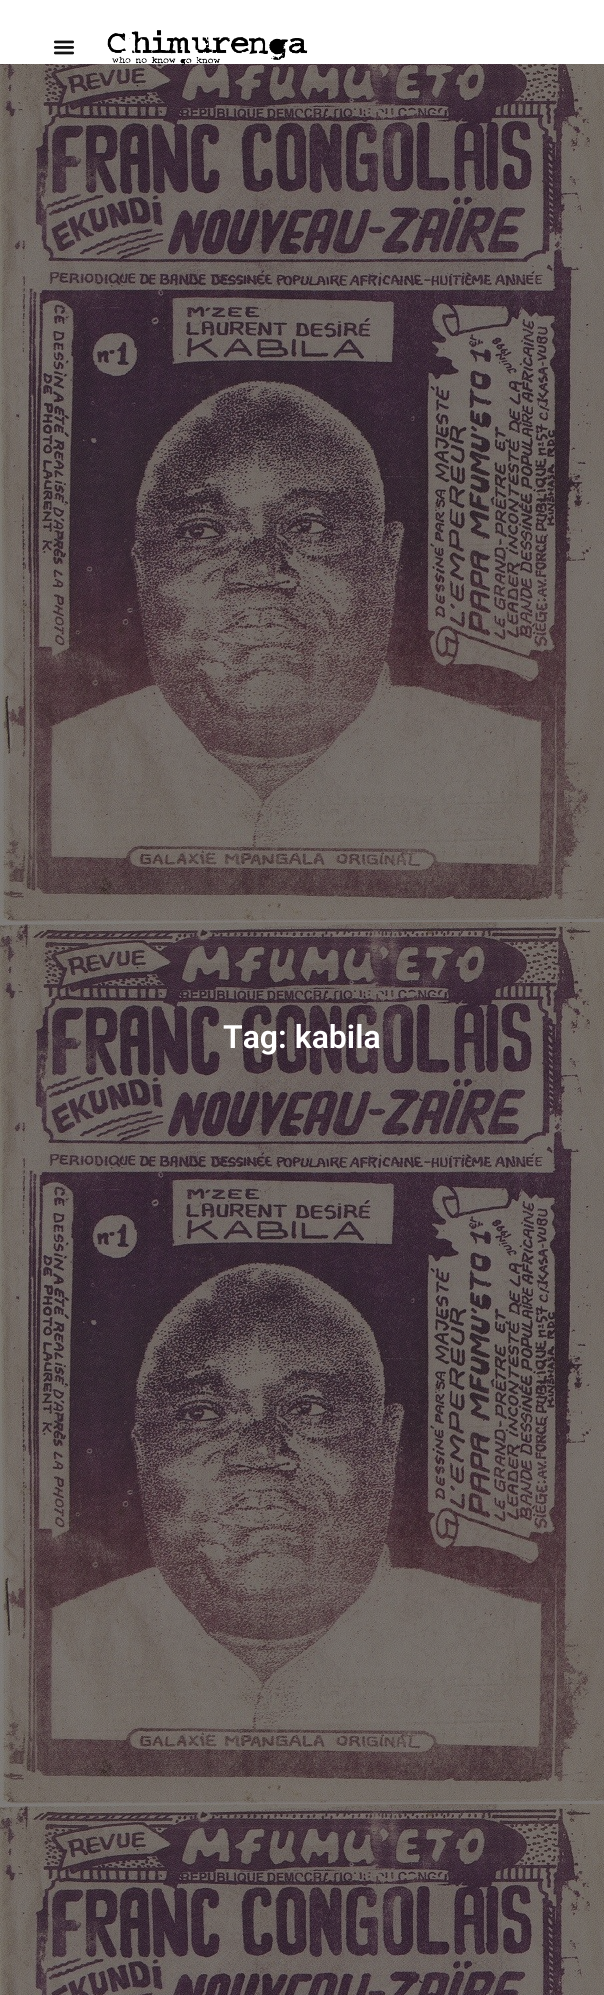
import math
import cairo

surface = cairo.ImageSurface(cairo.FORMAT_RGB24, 604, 1995)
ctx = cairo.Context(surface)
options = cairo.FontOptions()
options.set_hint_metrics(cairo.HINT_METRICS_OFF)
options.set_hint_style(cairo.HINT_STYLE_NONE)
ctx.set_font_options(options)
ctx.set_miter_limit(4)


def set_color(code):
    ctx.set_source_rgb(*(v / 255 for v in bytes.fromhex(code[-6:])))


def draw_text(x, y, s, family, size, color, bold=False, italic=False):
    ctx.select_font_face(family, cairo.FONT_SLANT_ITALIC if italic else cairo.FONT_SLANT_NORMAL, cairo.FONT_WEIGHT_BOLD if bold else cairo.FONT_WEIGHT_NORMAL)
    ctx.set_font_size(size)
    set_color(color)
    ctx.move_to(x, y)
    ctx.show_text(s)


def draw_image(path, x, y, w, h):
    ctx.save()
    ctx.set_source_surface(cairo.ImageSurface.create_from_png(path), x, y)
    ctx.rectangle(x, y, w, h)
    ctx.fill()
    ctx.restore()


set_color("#ffffff")
ctx.paint()
draw_image("assets/img1.png", 53, 40, 22, 15)
draw_image("assets/img3.png", 0, 64, 604, 1931)
draw_image("assets/img2.png", 107, 30, 201, 36)
draw_text(223, 1048, "Tag: kabila", "Roboto SemiBold", 32, "#ffffff")
surface.write_to_png("output.png")
